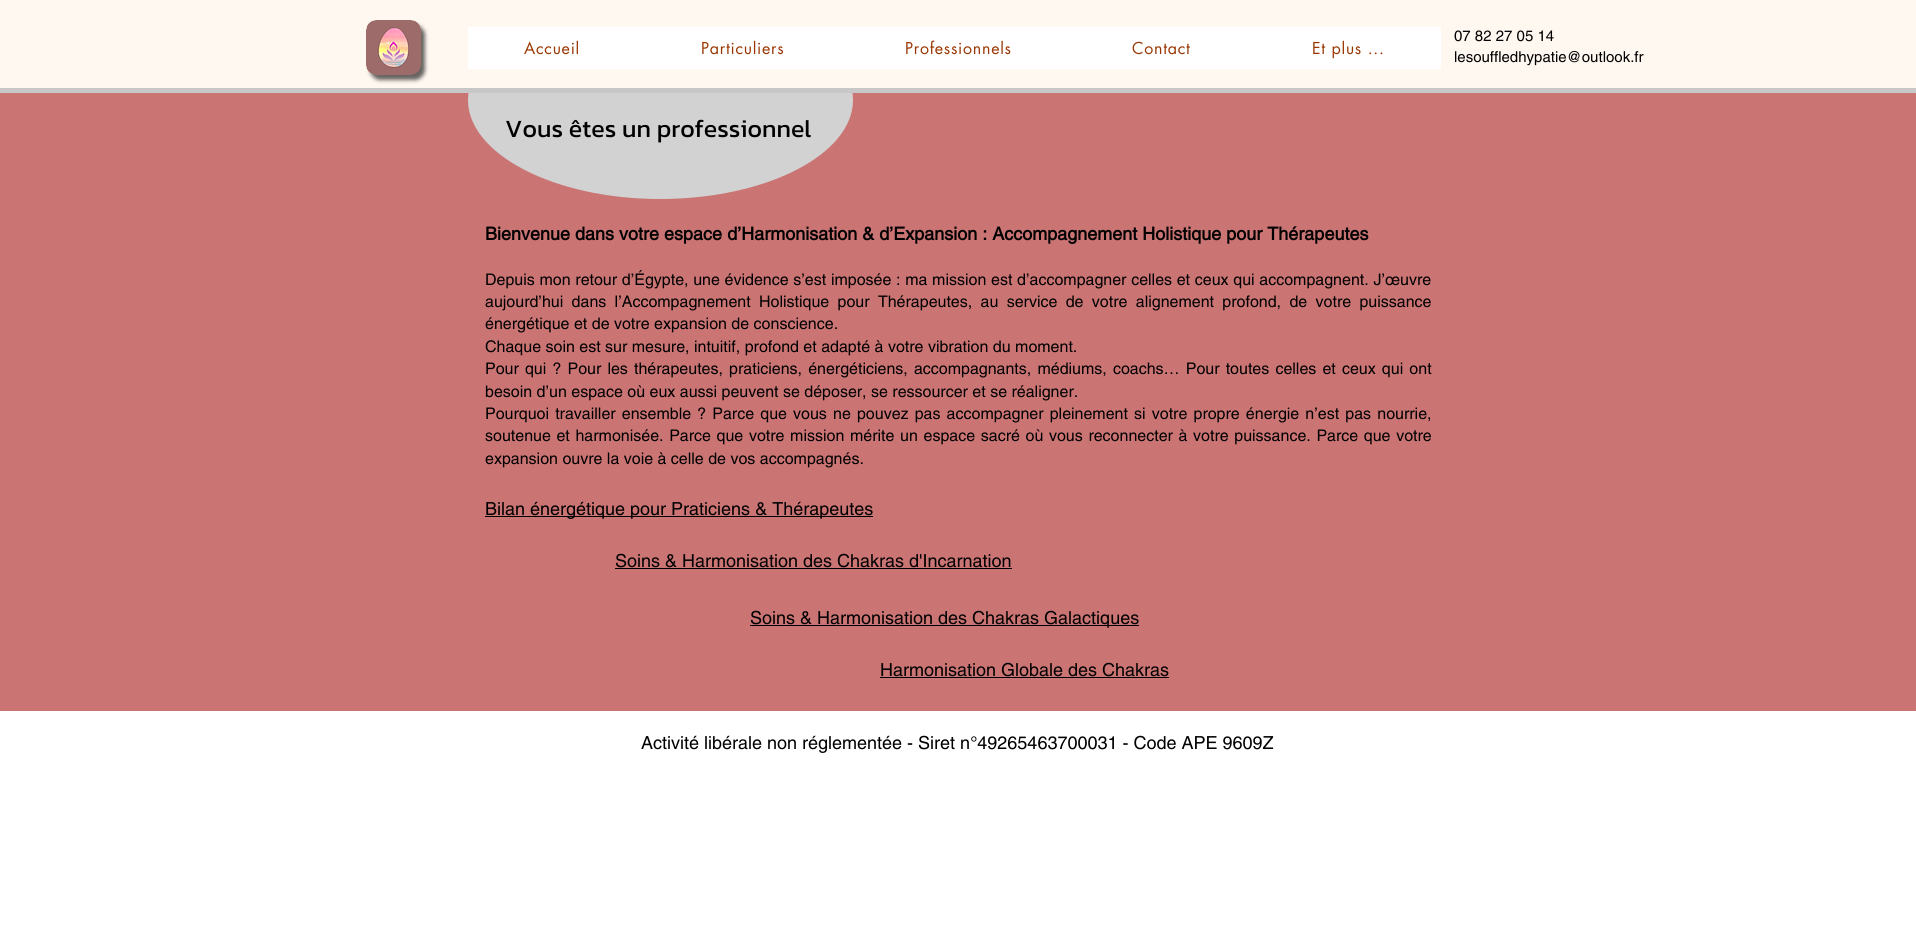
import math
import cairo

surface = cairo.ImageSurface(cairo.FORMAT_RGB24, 1916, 931)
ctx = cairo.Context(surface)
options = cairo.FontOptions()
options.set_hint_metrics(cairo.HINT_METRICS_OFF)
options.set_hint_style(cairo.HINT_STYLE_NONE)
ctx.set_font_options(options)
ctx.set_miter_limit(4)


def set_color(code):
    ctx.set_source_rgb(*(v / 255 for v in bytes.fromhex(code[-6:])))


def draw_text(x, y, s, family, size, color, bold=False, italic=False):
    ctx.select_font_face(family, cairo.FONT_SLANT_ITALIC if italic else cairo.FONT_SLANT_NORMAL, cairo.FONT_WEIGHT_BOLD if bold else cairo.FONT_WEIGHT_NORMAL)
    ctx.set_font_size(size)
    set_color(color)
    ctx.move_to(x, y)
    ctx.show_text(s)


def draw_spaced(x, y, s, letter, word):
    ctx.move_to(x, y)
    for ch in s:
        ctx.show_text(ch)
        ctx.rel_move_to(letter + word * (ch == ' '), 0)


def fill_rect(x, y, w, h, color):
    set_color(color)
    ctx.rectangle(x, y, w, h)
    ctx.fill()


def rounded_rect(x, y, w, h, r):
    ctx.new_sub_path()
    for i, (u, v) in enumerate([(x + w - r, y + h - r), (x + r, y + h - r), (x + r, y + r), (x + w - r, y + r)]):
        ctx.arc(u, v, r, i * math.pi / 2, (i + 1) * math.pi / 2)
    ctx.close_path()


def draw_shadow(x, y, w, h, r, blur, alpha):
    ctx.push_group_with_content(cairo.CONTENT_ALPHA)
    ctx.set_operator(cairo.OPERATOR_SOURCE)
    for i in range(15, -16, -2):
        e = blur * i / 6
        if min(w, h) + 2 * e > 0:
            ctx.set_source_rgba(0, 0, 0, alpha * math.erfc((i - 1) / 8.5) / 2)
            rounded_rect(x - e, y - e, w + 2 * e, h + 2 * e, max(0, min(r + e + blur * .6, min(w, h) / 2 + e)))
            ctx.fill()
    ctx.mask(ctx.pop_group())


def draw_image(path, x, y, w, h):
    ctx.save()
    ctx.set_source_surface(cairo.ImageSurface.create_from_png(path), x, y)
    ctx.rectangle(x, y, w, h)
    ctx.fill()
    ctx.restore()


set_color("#ffffff")
ctx.paint()
fill_rect(0, 93, 1916, 618, "#cb7474")
set_color("#d2d2d2")
ctx.new_path()
ctx.move_to(853, 100)
ctx.curve_to(853, 154, 767, 199, 660, 199)
ctx.curve_to(554, 199, 468, 154, 468, 100)
ctx.curve_to(468, 45, 554, 0, 660, 0)
ctx.curve_to(767, 0, 853, 45, 853, 100)
ctx.close_path()
ctx.fill()
fill_rect(0, 88, 1916, 5, "#c7c7c7")
fill_rect(0, 0, 1916, 88, "#fff8f1")
set_color("#000000")
draw_shadow(370, 25, 55, 55, 10, 2, 0.6)
draw_image("assets/img1.png", 366, 20, 55, 55)
fill_rect(468, 27, 973, 42, "#ffffff")
ctx.select_font_face("futura")
ctx.set_font_size(16)
set_color("#993500")
draw_spaced(524, 54, "Accueil", 0.75, 0)
draw_spaced(701, 54, "Particuliers", 0.75, 0)
draw_spaced(905, 54, "Professionnels", 0.75, 0)
draw_spaced(1132, 54, "Contact", 0.75, 0)
draw_spaced(1312, 54, "Et plus ...", 0.75, 0)
draw_text(1454, 41, "07 82 27 05 14", "helvetica", 15, "#000000")
draw_text(1454, 62, "lesouffledhypatie@outlook.fr", "helvetica", 15, "#000000")
draw_text(505, 137, "Vous êtes un professionnel", "Kanit", 25, "#000000")
draw_text(485, 240, "Bienvenue dans votre espace d’Harmonisation & d’Expansion : Accompagnement Holistique pour Thérapeutes", "helvetica", 18, "#000000", bold=True)
ctx.select_font_face("helvetica")
ctx.set_font_size(16)
draw_spaced(485, 285, "Depuis mon retour d’Égypte, une évidence s’est imposée : ma mission est d’accompagner celles et ceux qui accompagnent. J’œuvre", 0, 0.25)
draw_spaced(485, 307, "aujourd’hui dans l’Accompagnement Holistique pour Thérapeutes, au service de votre alignement profond, de votre puissance", 0, 3.9)
draw_text(485, 329, "énergétique et de votre expansion de conscience.", "helvetica", 16, "#000000")
draw_text(485, 352, "Chaque soin est sur mesure, intuitif, profond et adapté à votre vibration du moment.", "helvetica", 16, "#000000")
draw_spaced(485, 374, "Pour qui ? Pour les thérapeutes, praticiens, énergéticiens, accompagnants, médiums, coachs… Pour toutes celles et ceux qui ont", 0, 1.7)
draw_text(485, 397, "besoin d’un espace où eux aussi peuvent se déposer, se ressourcer et se réaligner.", "helvetica", 16, "#000000")
draw_spaced(485, 419, "Pourquoi travailler ensemble ? Parce que vous ne pouvez pas accompagner pleinement si votre propre énergie n’est pas nourrie,", 0, 1.7)
draw_spaced(485, 441, "soutenue et harmonisée. Parce que votre mission mérite un espace sacré où vous reconnecter à votre puissance. Parce que votre", 0, 1.2)
draw_text(485, 464, "expansion ouvre la voie à celle de vos accompagnés.", "helvetica", 16, "#000000")
fill_rect(485, 516, 388, 1, "#000000")
draw_text(485, 515, "Bilan énergétique pour Praticiens & Thérapeutes", "helvetica", 18, "#000000")
draw_text(615, 567, "Soins & Harmonisation des Chakras d'Incarnation", "helvetica", 18, "#000000")
fill_rect(615, 568, 397, 1, "#000000")
fill_rect(750, 625, 389, 1, "#000000")
draw_text(750, 624, "Soins & Harmonisation des Chakras Galactiques", "helvetica", 18, "#000000")
draw_text(880, 676, "Harmonisation Globale des Chakras", "helvetica", 18, "#000000")
fill_rect(880, 677, 289, 1, "#000000")
draw_text(641, 749, "Activité libérale non réglementée - Siret n°49265463700031 - Code APE 9609Z", "helvetica", 18, "#000000")
surface.write_to_png("output.png")
